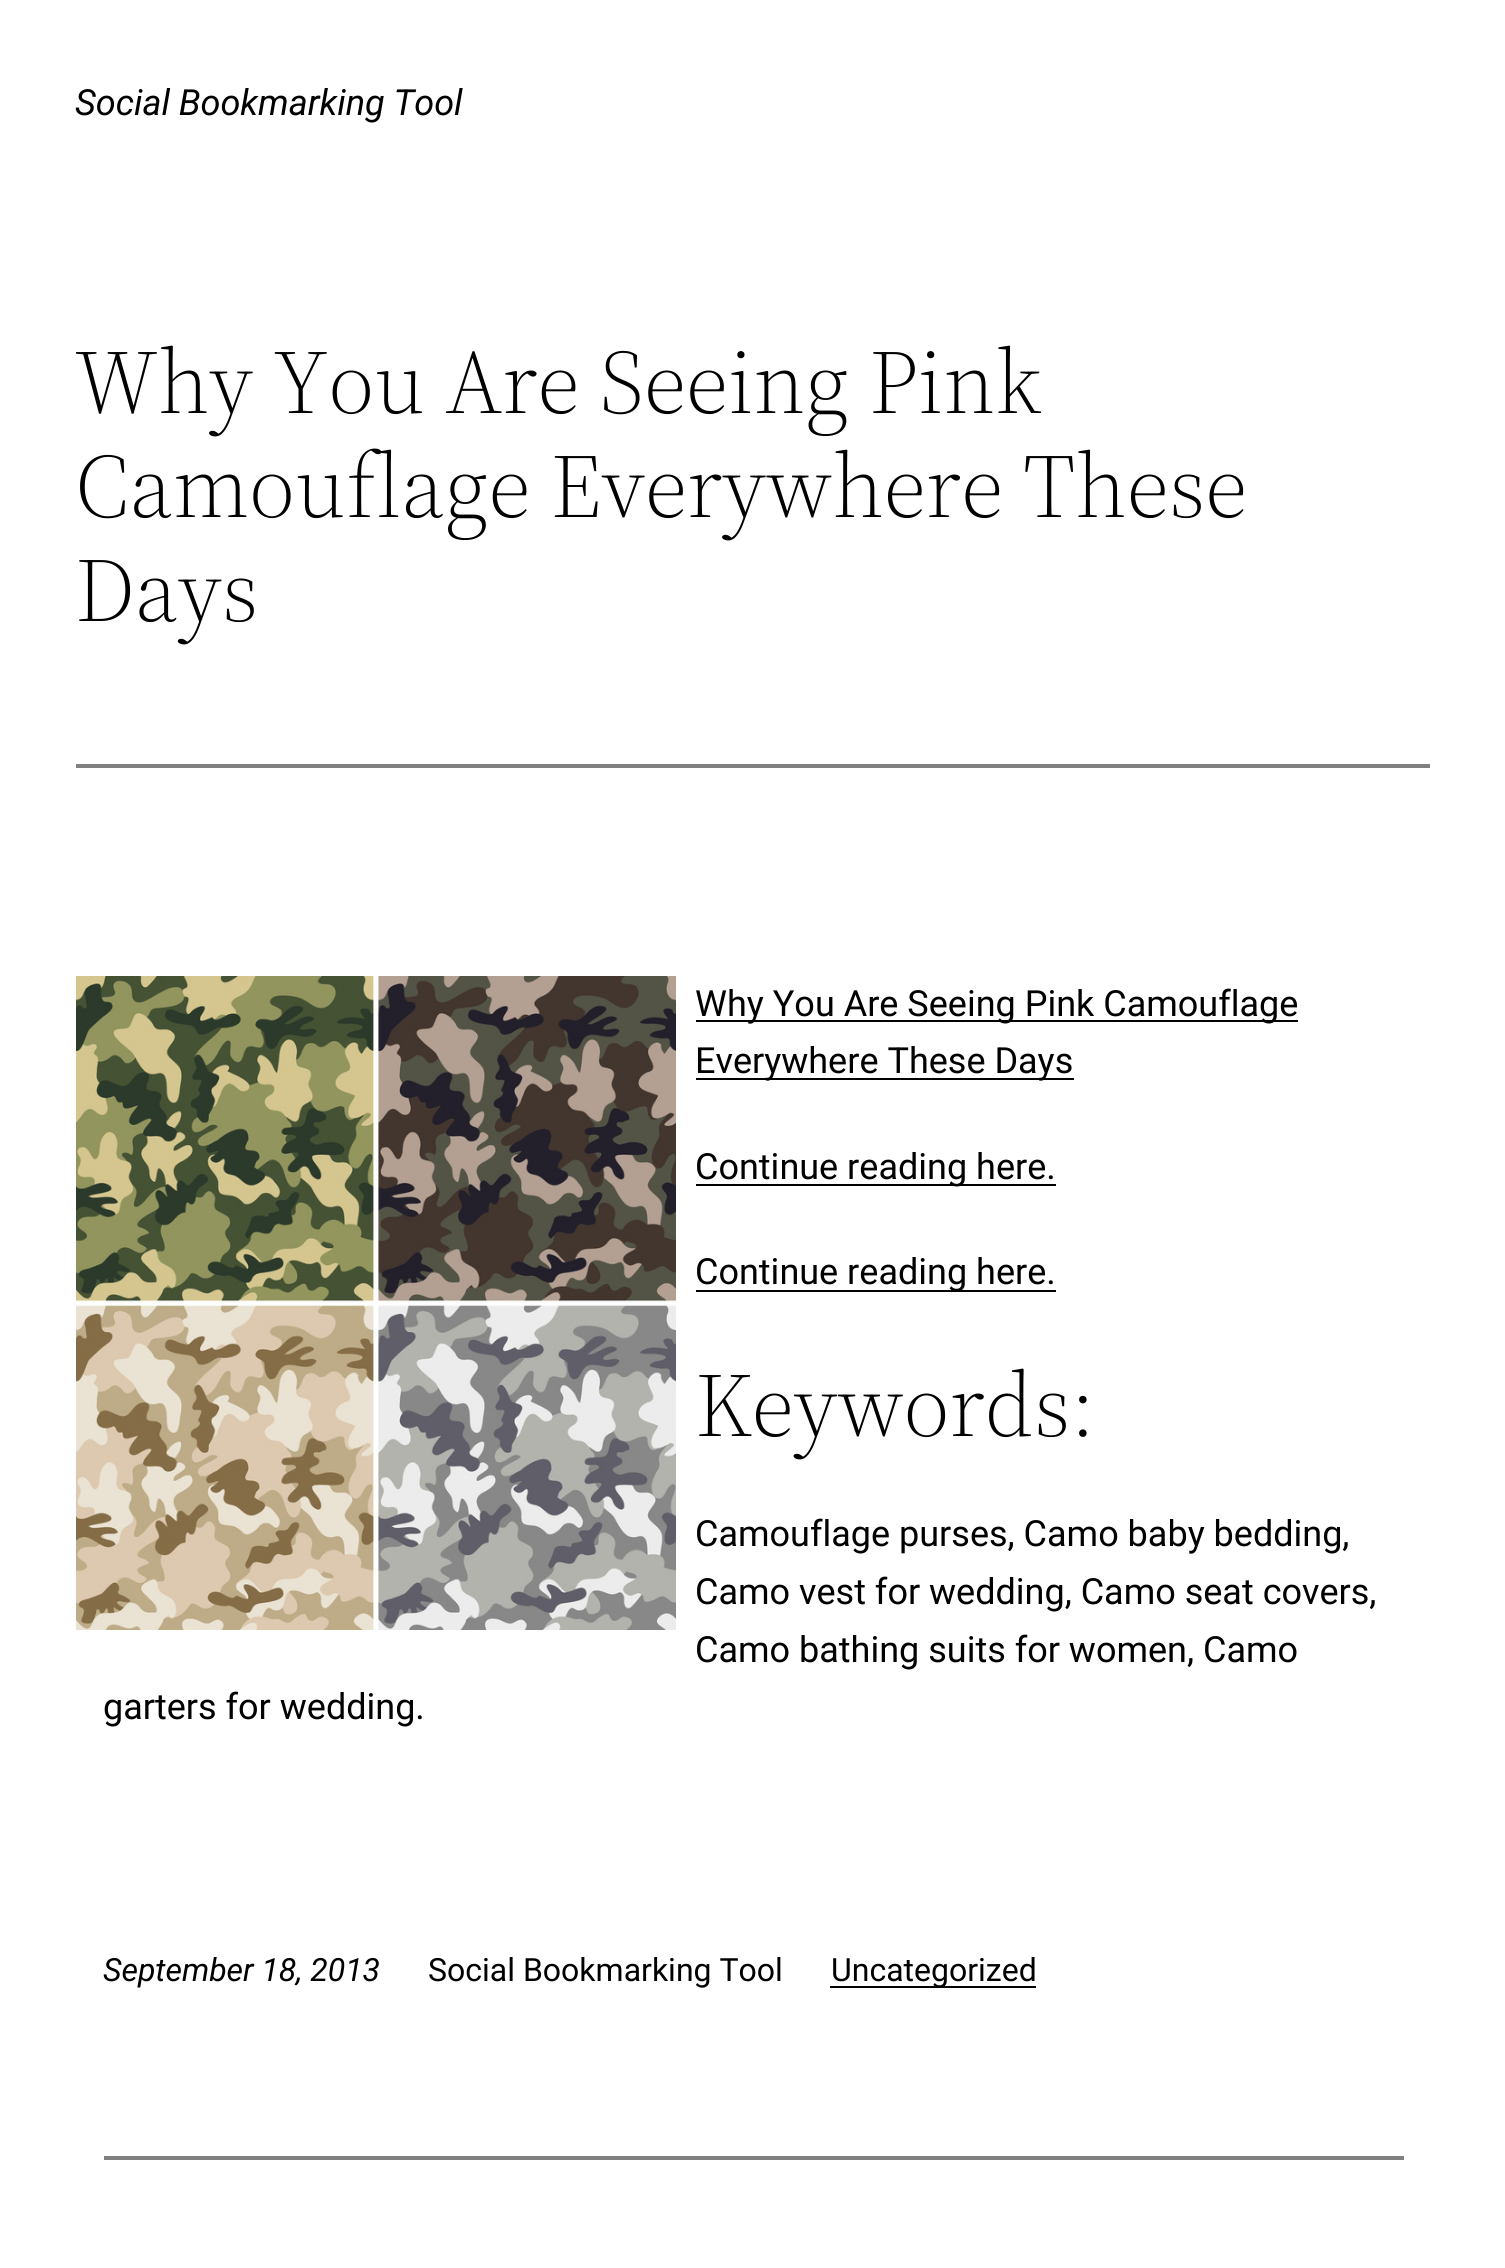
import math
import cairo

surface = cairo.ImageSurface(cairo.FORMAT_RGB24, 1505, 2268)
ctx = cairo.Context(surface)
options = cairo.FontOptions()
options.set_hint_metrics(cairo.HINT_METRICS_OFF)
options.set_hint_style(cairo.HINT_STYLE_NONE)
ctx.set_font_options(options)
ctx.set_miter_limit(4)


def set_color(code):
    ctx.set_source_rgb(*(v / 255 for v in bytes.fromhex(code[-6:])))


def draw_text(x, y, s, family, size, color, bold=False, italic=False):
    ctx.select_font_face(family, cairo.FONT_SLANT_ITALIC if italic else cairo.FONT_SLANT_NORMAL, cairo.FONT_WEIGHT_BOLD if bold else cairo.FONT_WEIGHT_NORMAL)
    ctx.set_font_size(size)
    set_color(color)
    ctx.move_to(x, y)
    ctx.show_text(s)


def fill_rect(x, y, w, h, color):
    set_color(color)
    ctx.rectangle(x, y, w, h)
    ctx.fill()


def draw_image(path, x, y, w, h):
    ctx.save()
    ctx.set_source_surface(cairo.ImageSurface.create_from_png(path), x, y)
    ctx.rectangle(x, y, w, h)
    ctx.fill()
    ctx.restore()


set_color("#ffffff")
ctx.paint()
draw_text(75, 115, "Social Bookmarking Tool", "Roboto", 36, "#000000", italic=True)
draw_text(75, 413, "Why You Are Seeing Pink", "Source Serif 4 Light", 90.4, "#000000")
draw_text(75, 517, "Camouflage Everywhere These", "Source Serif 4 Light", 90.4, "#000000")
draw_text(75, 621, "Days", "Source Serif 4 Light", 90.4, "#000000")
fill_rect(76, 764, 1354, 4, "#808080")
draw_image("assets/img1.png", 76, 976, 600, 654)
fill_rect(696, 1020, 602, 2, "#000000")
draw_text(695, 1016, "Why You Are Seeing Pink Camouflage", "Roboto", 36, "#000000")
fill_rect(696, 1078, 378, 2, "#000000")
draw_text(695, 1073, "Everywhere These Days", "Roboto", 36, "#000000")
fill_rect(696, 1184, 360, 2, "#000000")
draw_text(695, 1179, "Continue reading here.", "Roboto", 36, "#000000")
fill_rect(696, 1290, 360, 2, "#000000")
draw_text(695, 1284, "Continue reading here.", "Roboto", 36, "#000000")
draw_text(695, 1436, "Keywords:", "Source Serif 4 Light", 90.4, "#000000")
draw_text(695, 1546, "Camouflage purses, Camo baby bedding,", "Roboto", 36, "#000000")
draw_text(695, 1604, "Camo vest for wedding, Camo seat covers,", "Roboto", 36, "#000000")
draw_text(695, 1662, "Camo bathing suits for women, Camo", "Roboto", 36, "#000000")
draw_text(103, 1719, "garters for wedding.", "Roboto", 36, "#000000")
draw_text(103, 1981, "September 18, 2013", "Roboto", 32, "#000000", italic=True)
draw_text(428, 1981, "Social Bookmarking Tool", "Roboto", 32, "#000000")
fill_rect(830, 1986, 206, 2, "#000000")
draw_text(831, 1981, "Uncategorized", "Roboto", 32, "#000000")
fill_rect(104, 2156, 1300, 4, "#808080")
surface.write_to_png("output.png")
